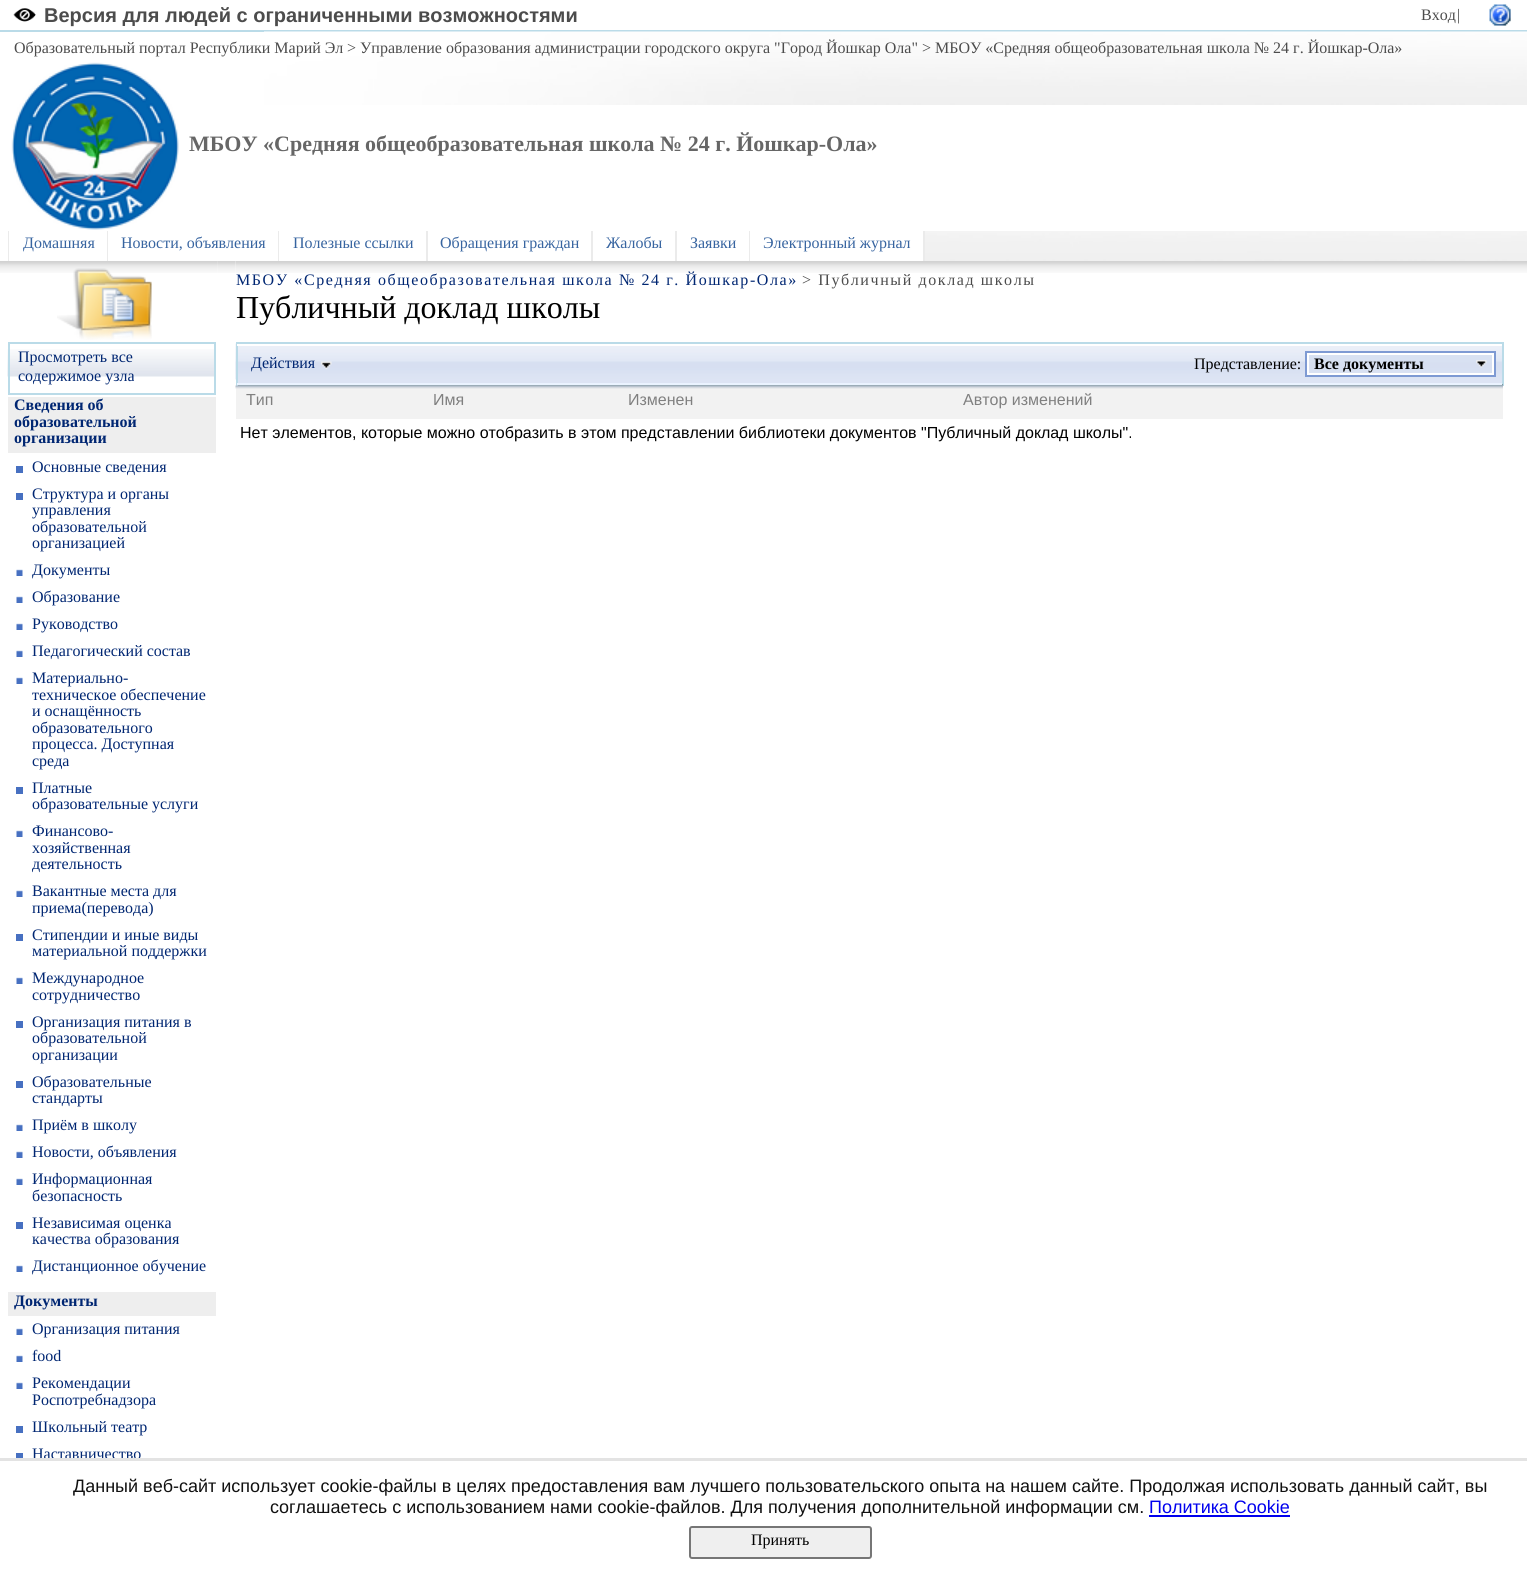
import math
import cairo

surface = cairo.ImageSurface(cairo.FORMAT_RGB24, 1527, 1573)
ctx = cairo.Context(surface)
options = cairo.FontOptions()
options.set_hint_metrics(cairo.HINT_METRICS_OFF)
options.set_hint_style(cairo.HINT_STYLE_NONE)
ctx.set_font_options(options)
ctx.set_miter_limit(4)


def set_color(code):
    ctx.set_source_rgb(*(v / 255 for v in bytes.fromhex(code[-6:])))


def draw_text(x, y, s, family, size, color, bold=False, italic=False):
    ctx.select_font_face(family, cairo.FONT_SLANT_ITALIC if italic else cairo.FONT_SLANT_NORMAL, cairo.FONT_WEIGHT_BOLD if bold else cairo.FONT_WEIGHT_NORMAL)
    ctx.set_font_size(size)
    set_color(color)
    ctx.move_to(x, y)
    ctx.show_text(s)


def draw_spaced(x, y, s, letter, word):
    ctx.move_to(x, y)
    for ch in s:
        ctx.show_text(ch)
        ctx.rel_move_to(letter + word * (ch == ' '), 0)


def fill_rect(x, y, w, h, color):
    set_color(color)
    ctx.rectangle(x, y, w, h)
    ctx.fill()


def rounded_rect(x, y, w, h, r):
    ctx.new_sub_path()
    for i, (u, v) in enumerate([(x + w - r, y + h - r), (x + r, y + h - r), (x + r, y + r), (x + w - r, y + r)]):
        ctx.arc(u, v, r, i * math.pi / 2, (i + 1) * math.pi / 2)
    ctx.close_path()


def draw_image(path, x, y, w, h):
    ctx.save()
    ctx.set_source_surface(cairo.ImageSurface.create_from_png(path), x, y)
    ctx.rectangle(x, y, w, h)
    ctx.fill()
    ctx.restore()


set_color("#ffffff")
ctx.paint()
fill_rect(0, 30, 1527, 2, "#badbe8")
draw_image("assets/img1.png", 13, 8, 23, 14)
draw_text(44, 22, "Версия для людей с ограниченными возможностями", "Liberation Sans", 20, "#4c4c4c", bold=True)
draw_text(1421, 20, "Вход", "Liberation Serif", 16, "#4c4c4c")
draw_text(1457, 20, "|", "Liberation Serif", 16, "#4c4c4c")
draw_image("assets/img2.png", 1489, 4, 22, 22)
draw_image("assets/img3.png", 264, 31, 1263, 74)
draw_text(14, 53, "Образовательный портал Республики Марий Эл", "Liberation Serif", 16, "#4c4c4c")
draw_text(347, 53, "> Управление образования администрации городского округа \"Город Йошкар Ола\" > МБОУ «Средняя общеобразовательная школа № 24 г. Йошкар-Ола»", "Liberation Serif", 16, "#4c4c4c")
draw_image("assets/img4.png", 11, 62, 168, 168)
draw_text(189, 151, "МБОУ «Средняя общеобразовательная школа № 24 г. Йошкар-Ола»", "Liberation Serif", 22, "#666666", bold=True)
draw_image("assets/img5.png", 925, 231, 602, 30)
fill_rect(8, 231, 1, 30, "#ebebeb")
fill_rect(107, 231, 1, 30, "#ebebeb")
draw_text(23, 248, "Домашняя", "Liberation Serif", 16, "#3764a0")
fill_rect(278, 231, 1, 30, "#ebebeb")
draw_text(121, 248, "Новости, объявления", "Liberation Serif", 16, "#3764a0")
fill_rect(426, 231, 2, 30, "#ebebeb")
draw_text(293, 248, "Полезные ссылки", "Liberation Serif", 16, "#3764a0")
fill_rect(591, 231, 2, 30, "#ebebeb")
draw_text(440, 248, "Обращения граждан", "Liberation Serif", 16, "#3764a0")
fill_rect(675, 231, 2, 30, "#ebebeb")
draw_text(606, 248, "Жалобы", "Liberation Serif", 16, "#3764a0")
fill_rect(749, 231, 1, 30, "#ebebeb")
draw_text(690, 248, "Заявки", "Liberation Serif", 16, "#3764a0")
fill_rect(923, 231, 2, 30, "#ebebeb")
draw_text(763, 248, "Электронный журнал", "Liberation Serif", 16, "#3764a0")
draw_image("assets/img6.png", 0, 261, 218, 12)
draw_image("assets/img7.png", 57, 268, 95, 72)
draw_image("assets/img8.png", 217, 261, 1, 12)
draw_image("assets/img9.png", 217, 261, 19, 12)
draw_image("assets/img10.png", 1503, 261, 24, 12)
draw_image("assets/img11.png", 235, 261, 1268, 12)
set_color("#002672")
draw_spaced(236, 285, "МБОУ «Средняя общеобразовательная школа № 24 г. Йошкар-Ола»", 1.6, 0)
set_color("#4c4c4c")
draw_spaced(802, 285, "> Публичный доклад школы", 1.6, 0)
draw_text(236, 318, "Публичный доклад школы", "Liberation Serif", 32, "#000000")
draw_image("assets/img12.png", 7, 349, 207, 28)
ctx.rectangle(9, 343, 206, 51)
set_color("#badbe8")
ctx.stroke()
draw_text(18, 362, "Просмотреть все", "Liberation Serif", 16, "#002672")
draw_text(18, 381, "содержимое узла", "Liberation Serif", 16, "#002672")
fill_rect(8, 397, 208, 56, "#eeeeee")
draw_text(14, 410, "Сведения об", "Liberation Serif", 16, "#002672", bold=True)
draw_text(14, 427, "образовательной", "Liberation Serif", 16, "#002672", bold=True)
draw_text(14, 443, "организации", "Liberation Serif", 16, "#002672", bold=True)
fill_rect(16, 466, 7, 7, "#4770c1")
draw_text(32, 472, "Основные сведения", "Liberation Serif", 16, "#002672")
fill_rect(16, 493, 7, 7, "#4770c1")
draw_text(32, 499, "Структура и органы", "Liberation Serif", 16, "#002672")
draw_text(32, 515, "управления", "Liberation Serif", 16, "#002672")
draw_text(32, 532, "образовательной", "Liberation Serif", 16, "#002672")
draw_text(32, 548, "организацией", "Liberation Serif", 16, "#002672")
draw_image("assets/img13.png", 16, 569, 7, 7)
draw_text(32, 575, "Документы", "Liberation Serif", 16, "#002672")
draw_image("assets/img13.png", 16, 596, 7, 7)
draw_text(32, 602, "Образование", "Liberation Serif", 16, "#002672")
draw_image("assets/img13.png", 16, 623, 7, 7)
draw_text(32, 629, "Руководство", "Liberation Serif", 16, "#002672")
draw_image("assets/img13.png", 16, 650, 7, 7)
draw_text(32, 656, "Педагогический состав", "Liberation Serif", 16, "#002672")
draw_image("assets/img13.png", 16, 677, 7, 7)
draw_text(32, 683, "Материально-", "Liberation Serif", 16, "#002672")
draw_text(32, 700, "техническое обеспечение", "Liberation Serif", 16, "#002672")
draw_text(32, 716, "и оснащённость", "Liberation Serif", 16, "#002672")
draw_text(32, 733, "образовательного", "Liberation Serif", 16, "#002672")
draw_text(32, 749, "процесса. Доступная", "Liberation Serif", 16, "#002672")
draw_text(32, 766, "среда", "Liberation Serif", 16, "#002672")
fill_rect(16, 787, 7, 7, "#4770c1")
draw_text(32, 793, "Платные", "Liberation Serif", 16, "#002672")
draw_text(32, 809, "образовательные услуги", "Liberation Serif", 16, "#002672")
draw_image("assets/img13.png", 16, 830, 7, 7)
draw_text(32, 836, "Финансово-", "Liberation Serif", 16, "#002672")
draw_text(32, 853, "хозяйственная", "Liberation Serif", 16, "#002672")
draw_text(32, 869, "деятельность", "Liberation Serif", 16, "#002672")
draw_image("assets/img13.png", 16, 890, 7, 7)
draw_text(32, 896, "Вакантные места для", "Liberation Serif", 16, "#002672")
draw_text(32, 913, "приема(перевода)", "Liberation Serif", 16, "#002672")
fill_rect(16, 934, 7, 7, "#4770c1")
draw_text(32, 940, "Стипендии и иные виды", "Liberation Serif", 16, "#002672")
draw_text(32, 956, "материальной поддержки", "Liberation Serif", 16, "#002672")
draw_image("assets/img13.png", 16, 977, 7, 7)
draw_text(32, 983, "Международное", "Liberation Serif", 16, "#002672")
draw_text(32, 1000, "сотрудничество", "Liberation Serif", 16, "#002672")
fill_rect(16, 1021, 7, 7, "#4770c1")
draw_text(32, 1027, "Организация питания в", "Liberation Serif", 16, "#002672")
draw_text(32, 1043, "образовательной", "Liberation Serif", 16, "#002672")
draw_text(32, 1060, "организации", "Liberation Serif", 16, "#002672")
fill_rect(16, 1081, 7, 7, "#4770c1")
draw_text(32, 1087, "Образoвательные", "Liberation Serif", 16, "#002672")
draw_text(32, 1103, "стандарты", "Liberation Serif", 16, "#002672")
draw_image("assets/img13.png", 16, 1124, 7, 7)
draw_text(32, 1130, "Приём в школу", "Liberation Serif", 16, "#002672")
draw_image("assets/img13.png", 16, 1151, 7, 7)
draw_text(32, 1157, "Новости, объявления", "Liberation Serif", 16, "#002672")
draw_image("assets/img13.png", 16, 1178, 7, 7)
draw_text(32, 1184, "Информационная", "Liberation Serif", 16, "#002672")
draw_text(32, 1201, "безопасность", "Liberation Serif", 16, "#002672")
fill_rect(16, 1222, 7, 7, "#4770c1")
draw_text(32, 1228, "Независимая оценка", "Liberation Serif", 16, "#002672")
draw_text(32, 1244, "качества образования", "Liberation Serif", 16, "#002672")
draw_image("assets/img13.png", 16, 1265, 7, 7)
draw_text(32, 1271, "Дистанционное обучение", "Liberation Serif", 16, "#002672")
fill_rect(8, 1292, 208, 24, "#eeeeee")
draw_text(14, 1306, "Документы", "Liberation Serif", 16, "#002672", bold=True)
draw_image("assets/img13.png", 16, 1328, 7, 7)
draw_text(32, 1334, "Организация питания", "Liberation Serif", 16, "#002672")
draw_image("assets/img13.png", 16, 1355, 7, 7)
draw_text(32, 1361, "food", "Liberation Serif", 16, "#002672")
draw_image("assets/img13.png", 16, 1382, 7, 7)
draw_text(32, 1388, "Рекомендации", "Liberation Serif", 16, "#002672")
draw_text(32, 1405, "Роспотребнадзора", "Liberation Serif", 16, "#002672")
fill_rect(16, 1426, 7, 7, "#4770c1")
draw_text(32, 1432, "Школьный театр", "Liberation Serif", 16, "#002672")
fill_rect(16, 1453, 7, 5, "#4770c1")
draw_text(32, 1459, "Наставничество", "Liberation Serif", 16, "#002672")
fill_rect(238, 379, 1264, 4, "#dde4f4")
draw_image("assets/img14.png", 235, 343, 1267, 37)
fill_rect(236, 342, 1267, 2, "#badbe8")
fill_rect(1502, 342, 2, 44, "#badbe8")
fill_rect(236, 384, 1267, 2, "#839aa3")
fill_rect(236, 342, 2, 44, "#badbe8")
fill_rect(237, 344, 1265, 2, "#ffffff")
fill_rect(237, 383, 1265, 2, "#eaf3ff")
draw_text(251, 368, "Действия", "Liberation Serif", 16, "#002672")
draw_image("assets/img15.png", 321, 361, 11, 9)
draw_text(1194, 369, "Представление:", "Liberation Serif", 16, "#000000")
fill_rect(1309, 355, 183, 7, "#d8e1f2")
ctx.rectangle(1306, 352, 189, 24)
set_color("#7e9ad3")
ctx.stroke()
draw_image("assets/img16.png", 1476, 360, 11, 8)
ctx.rectangle(1308, 354, 185, 20)
set_color("#ffffff")
ctx.stroke()
draw_text(1314, 369, "Все документы", "Liberation Serif", 16, "#000000", bold=True)
fill_rect(236, 388, 1267, 31, "#f2f2f2")
draw_image("assets/img17.png", 235, 385, 188, 4)
draw_text(246, 405, "Тип", "Liberation Sans", 16, "#808080")
draw_image("assets/img18.png", 423, 385, 195, 4)
draw_text(433, 405, "Имя", "Liberation Sans", 16, "#808080")
draw_image("assets/img19.png", 618, 385, 321, 4)
draw_text(628, 405, "Изменен", "Liberation Sans", 16, "#808080")
draw_image("assets/img20.png", 939, 385, 564, 4)
draw_text(963, 405, "Автор изменений", "Liberation Sans", 16, "#808080")
draw_text(240, 438, "Нет элементов, которые можно отобразить в этом представлении библиотеки документов \"Публичный доклад школы\".", "Liberation Sans", 16, "#000000")
fill_rect(0, 1458, 1527, 3, "#e3e3e3")
draw_text(73, 1492, "Данный веб-сайт использует cookie-файлы в целях предоставления вам лучшего пользовательского опыта на нашем сайте. Продолжая использовать данный сайт, вы", "Liberation Sans", 18, "#111111")
draw_text(270, 1513, "соглашаетесь с использованием нами cookie-файлов. Для получения дополнительной информации см.", "Liberation Sans", 18, "#111111")
draw_text(1149, 1513, "Политика Cookie", "Liberation Sans", 18, "#0000ee")
fill_rect(1149, 1515, 141, 2, "#0000ee")
set_color("#efefef")
rounded_rect(690, 1527, 181, 31, 2)
ctx.fill_preserve()
set_color("#767676")
ctx.stroke()
draw_text(751, 1545, "Принять", "Liberation Serif", 16, "#000000")
surface.write_to_png("output.png")
